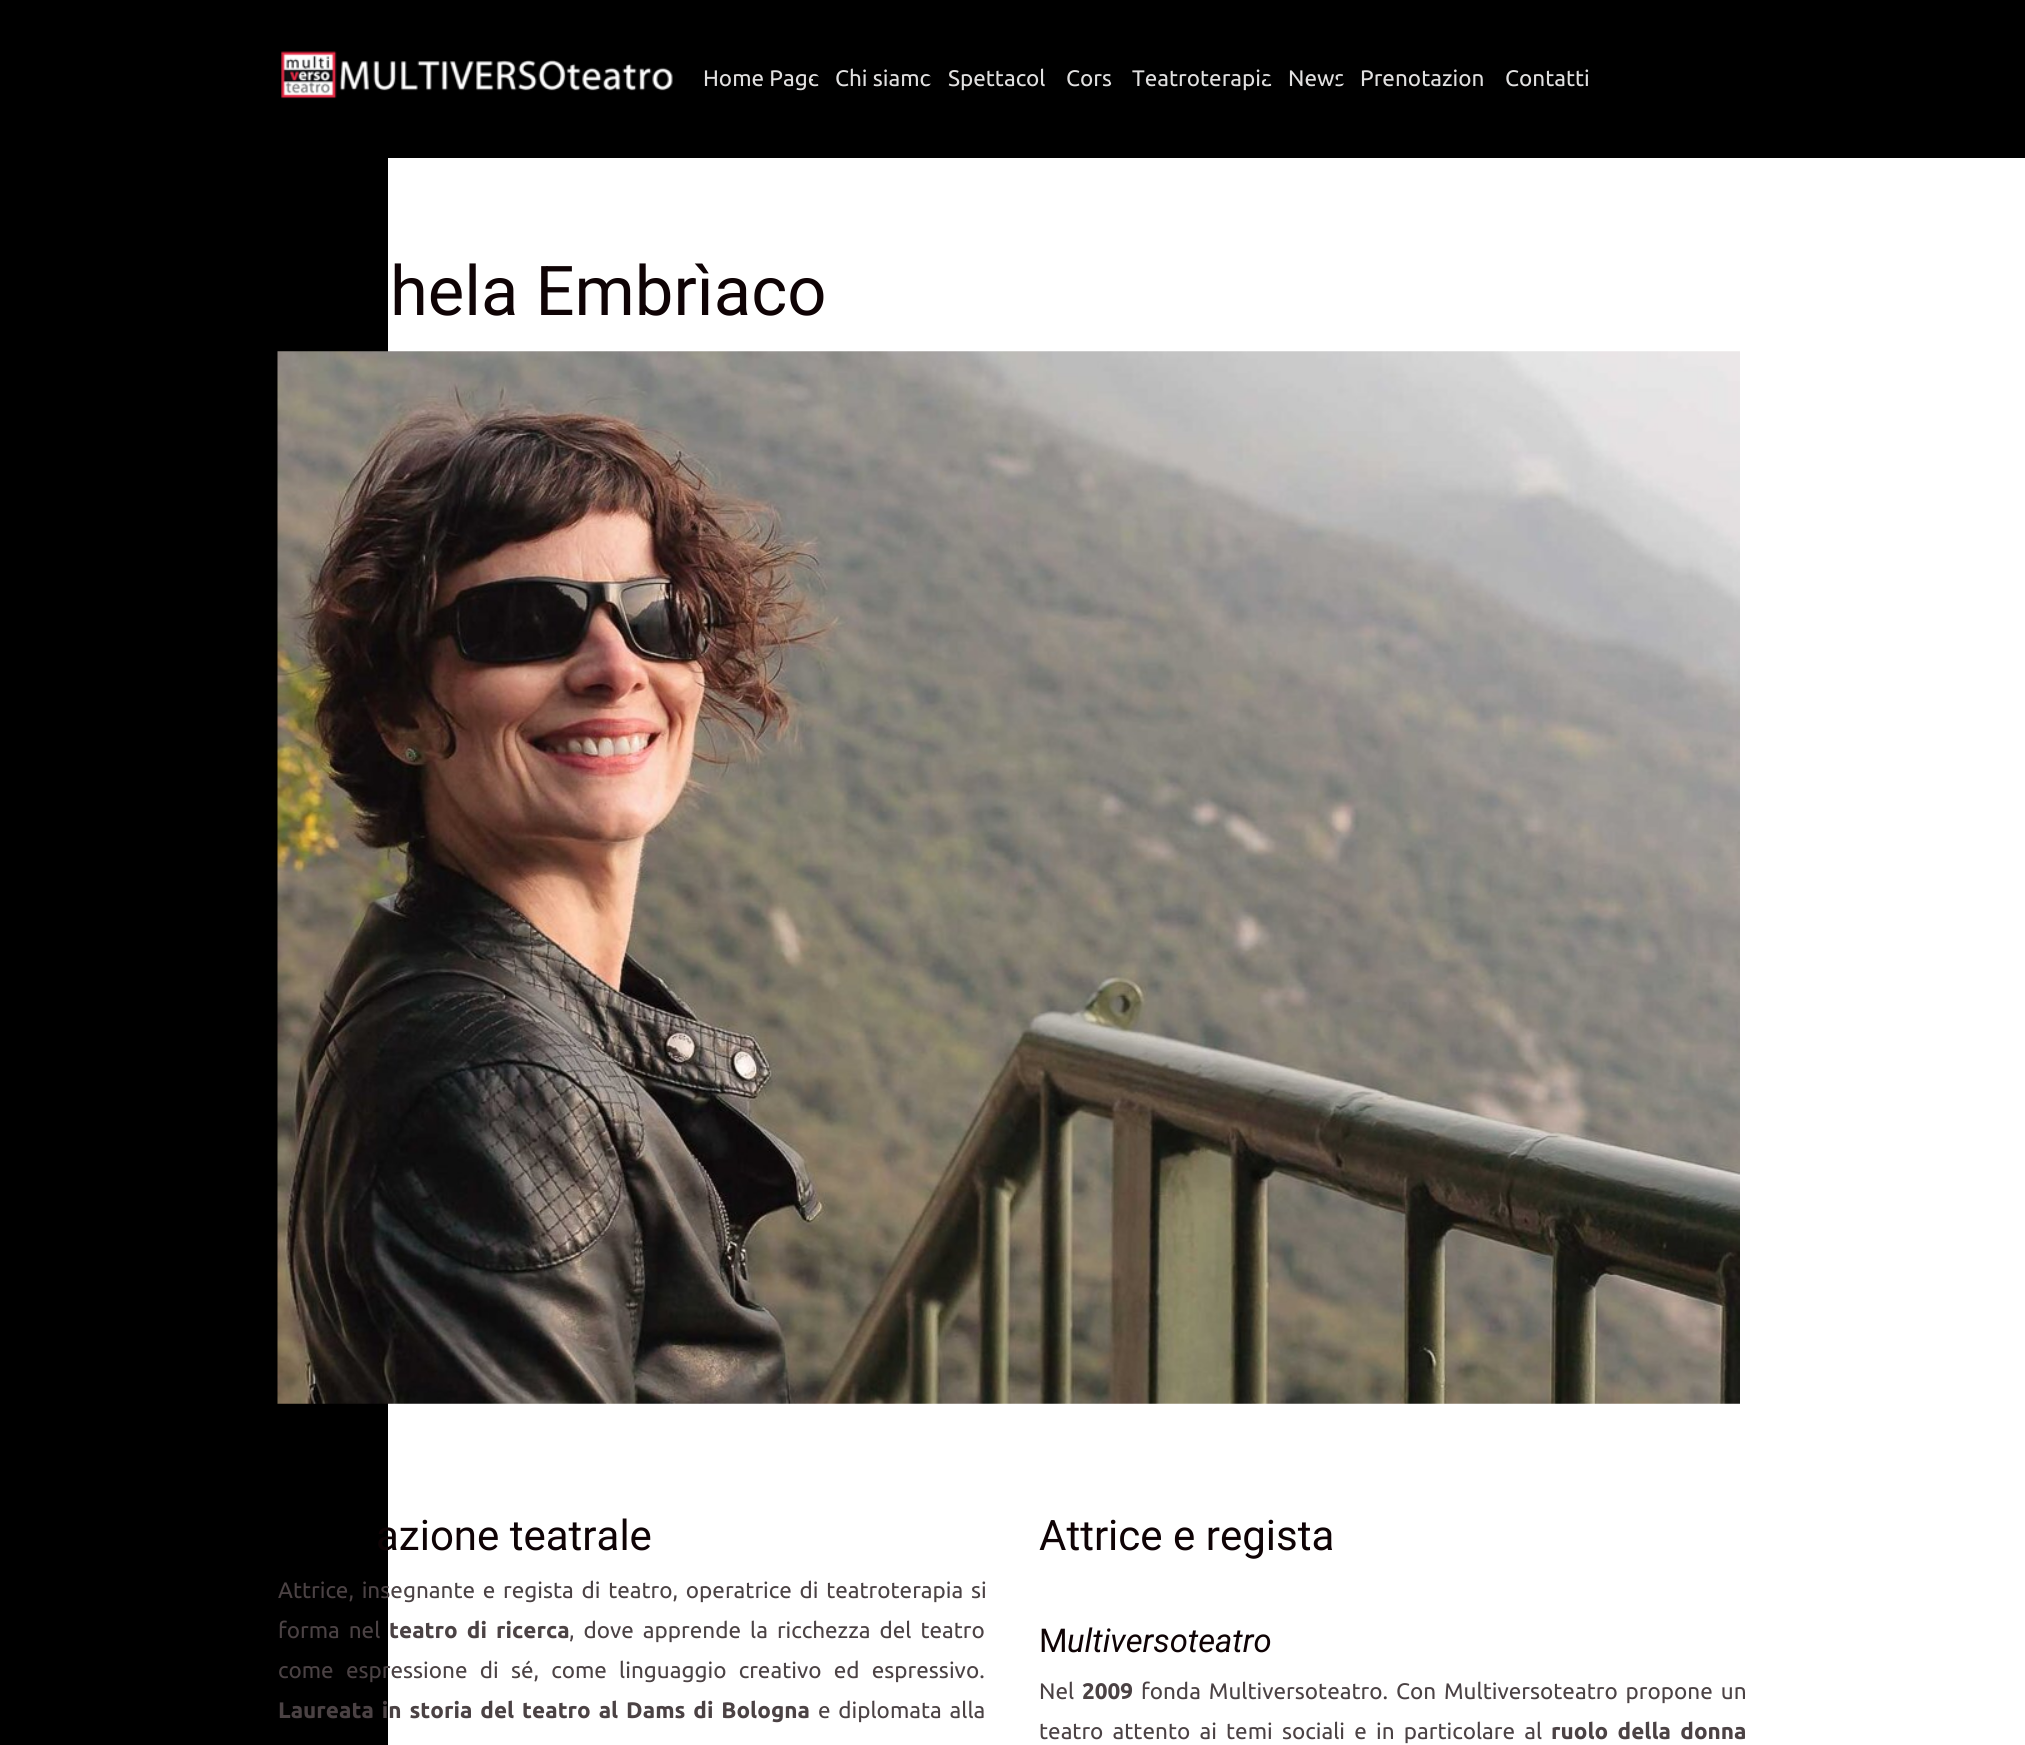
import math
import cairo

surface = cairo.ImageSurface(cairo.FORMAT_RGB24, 2025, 1745)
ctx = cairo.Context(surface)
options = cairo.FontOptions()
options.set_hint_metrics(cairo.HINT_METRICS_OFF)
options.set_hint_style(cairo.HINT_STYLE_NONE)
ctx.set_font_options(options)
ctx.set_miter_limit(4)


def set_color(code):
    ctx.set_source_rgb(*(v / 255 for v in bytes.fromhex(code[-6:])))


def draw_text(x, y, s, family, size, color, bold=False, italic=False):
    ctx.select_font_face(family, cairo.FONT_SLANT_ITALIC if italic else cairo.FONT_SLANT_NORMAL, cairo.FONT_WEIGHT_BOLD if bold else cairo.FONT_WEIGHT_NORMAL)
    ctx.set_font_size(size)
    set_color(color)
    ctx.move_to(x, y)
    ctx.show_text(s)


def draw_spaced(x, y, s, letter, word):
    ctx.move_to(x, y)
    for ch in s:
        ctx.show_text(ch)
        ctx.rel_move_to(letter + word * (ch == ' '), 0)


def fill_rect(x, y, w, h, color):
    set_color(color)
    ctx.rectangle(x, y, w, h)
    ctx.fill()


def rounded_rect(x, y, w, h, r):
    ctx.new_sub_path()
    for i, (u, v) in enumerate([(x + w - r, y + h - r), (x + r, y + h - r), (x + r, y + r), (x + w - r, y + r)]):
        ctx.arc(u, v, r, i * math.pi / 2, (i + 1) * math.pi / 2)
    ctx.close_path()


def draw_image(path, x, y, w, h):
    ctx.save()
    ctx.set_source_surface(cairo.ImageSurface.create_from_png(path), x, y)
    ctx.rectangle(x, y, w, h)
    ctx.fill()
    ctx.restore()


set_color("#000000")
ctx.paint()
draw_image("assets/img1.png", 281, 51, 392, 48)
draw_text(703, 86, "Home Page", "Ubuntu", 22.5, "#e1e0e0")
set_color("#000000")
rounded_rect(813, 76, 7, 8, 3.5)
ctx.fill()
draw_text(835, 86, "Chi siamo", "Ubuntu", 22.5, "#e1e0e0")
set_color("#000000")
ctx.new_path()
ctx.arc(929, 80, 4, 0, 2 * math.pi)
ctx.fill()
draw_text(948, 86, "Spettacol", "Ubuntu", 22.5, "#e1e0e0")
draw_text(1066, 86, "Cors", "Ubuntu", 22.5, "#e1e0e0")
set_color("#000000")
ctx.new_path()
ctx.arc(1114, 80, 4, 0, 2 * math.pi)
ctx.fill()
draw_text(1132, 86, "Teatroterapia", "Ubuntu", 22.5, "#e1e0e0")
set_color("#000000")
ctx.new_path()
ctx.arc(1270, 80, 4, 0, 2 * math.pi)
ctx.fill()
draw_text(1288, 86, "News", "Ubuntu", 22.5, "#e1e0e0")
set_color("#000000")
rounded_rect(1338, 76, 7, 8, 3.5)
ctx.fill()
draw_text(1360, 86, "Prenotazion", "Ubuntu", 22.5, "#e1e0e0")
draw_text(1505, 86, "Contatti", "Ubuntu", 22.5, "#e1e0e0")
fill_rect(388, 158, 1637, 1587, "#ffffff")
draw_text(390, 315, "hela Embrìaco", "Roboto", 68.75, "#0f0305")
draw_image("assets/img2.png", 277, 351, 1463, 1053)
draw_text(376, 1550, "azione teatrale", "Roboto", 42, "#0f0305")
draw_text(1039, 1550, "Attrice e regista", "Roboto", 42, "#0f0305")
ctx.select_font_face("Ubuntu")
ctx.set_font_size(22.5)
set_color("#4b4244")
draw_spaced(278, 1598, "Attrice, insegnante e regista di teatro, operatrice di teatroterapia si", 0, 2.5)
draw_spaced(278, 1638, "forma nel", 0, 3.75)
ctx.select_font_face("Ubuntu", cairo.FONT_SLANT_NORMAL, cairo.FONT_WEIGHT_BOLD)
draw_spaced(389, 1638, "teatro di ricerca", 0, 3.75)
ctx.select_font_face("Ubuntu")
draw_spaced(569, 1638, ", dove apprende la ricchezza del teatro", 0, 3.75)
draw_spaced(278, 1678, "come espressione di sé, come linguaggio creativo ed espressivo.", 0, 7)
ctx.select_font_face("Ubuntu", cairo.FONT_SLANT_NORMAL, cairo.FONT_WEIGHT_BOLD)
draw_spaced(278, 1718, "Laureata in storia del teatro al Dams di Bologna", 0, 2.5)
ctx.select_font_face("Ubuntu")
draw_spaced(818, 1718, "e diplomata alla", 0, 2.5)
draw_text(1039, 1652, "M", "Roboto", 32.75, "#0f0305")
draw_text(1067, 1652, "ultiversoteatro", "Roboto", 32.75, "#0f0305", italic=True)
draw_text(1039, 1699, "Nel", "Ubuntu", 22.5, "#4b4244")
draw_text(1082, 1699, "2009", "Ubuntu", 22.5, "#4b4244", bold=True)
ctx.select_font_face("Ubuntu")
draw_spaced(1141, 1699, "fonda Multiversoteatro. Con Multiversoteatro propone un", 0, 2.75)
draw_spaced(1039, 1739, "teatro attento ai temi sociali e in particolare al", 0, 4)
ctx.select_font_face("Ubuntu", cairo.FONT_SLANT_NORMAL, cairo.FONT_WEIGHT_BOLD)
draw_spaced(1551, 1739, "ruolo della donna", 0, 4)
surface.write_to_png("output.png")
